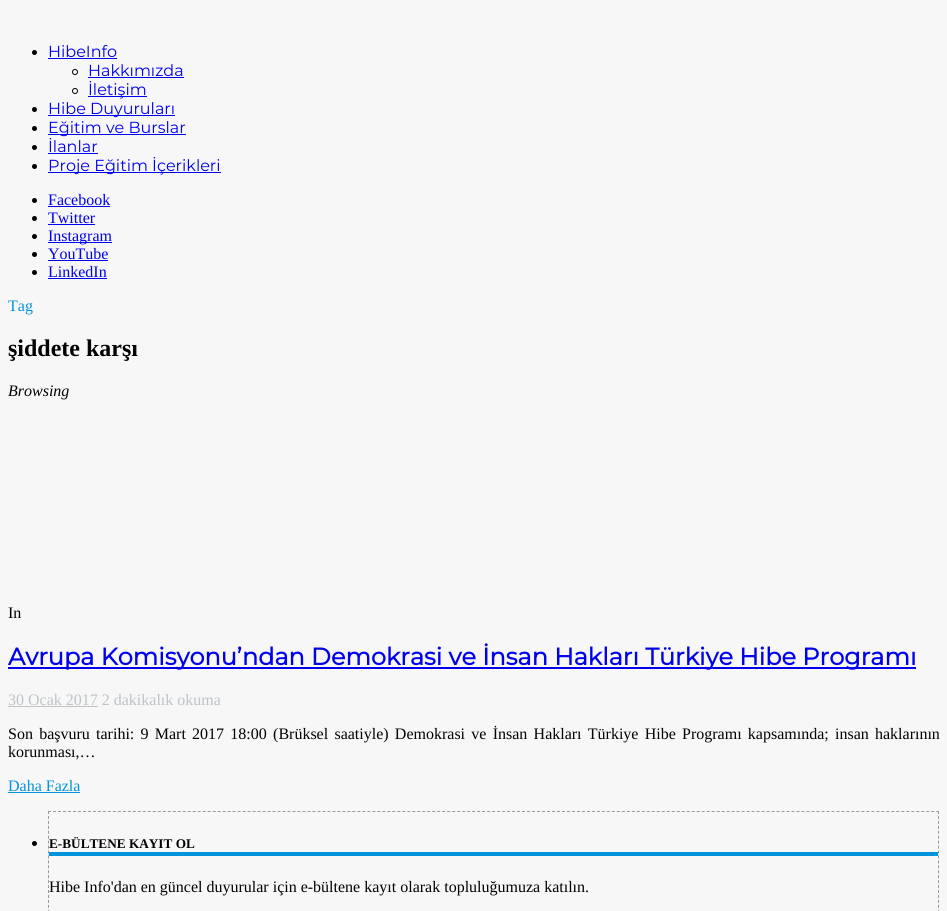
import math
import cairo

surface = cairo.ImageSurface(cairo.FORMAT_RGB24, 947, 911)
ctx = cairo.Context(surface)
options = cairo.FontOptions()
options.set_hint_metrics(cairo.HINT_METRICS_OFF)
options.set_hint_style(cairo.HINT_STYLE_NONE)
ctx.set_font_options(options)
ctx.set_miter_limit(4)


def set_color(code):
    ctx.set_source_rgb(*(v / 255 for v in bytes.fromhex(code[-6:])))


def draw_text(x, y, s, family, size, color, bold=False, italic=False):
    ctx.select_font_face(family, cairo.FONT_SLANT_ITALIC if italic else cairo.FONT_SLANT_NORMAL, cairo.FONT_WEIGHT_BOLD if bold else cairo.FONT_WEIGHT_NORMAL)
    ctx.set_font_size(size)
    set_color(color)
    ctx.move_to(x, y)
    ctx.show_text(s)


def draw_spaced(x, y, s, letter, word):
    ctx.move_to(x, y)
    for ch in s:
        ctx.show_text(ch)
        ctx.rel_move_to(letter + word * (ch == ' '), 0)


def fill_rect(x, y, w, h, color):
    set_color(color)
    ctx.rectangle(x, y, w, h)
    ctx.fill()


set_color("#f7f7f7")
ctx.paint()
set_color("#000000")
ctx.arc(34.5, 52.5, 2.5, 0, 2 * math.pi)
ctx.fill()
draw_text(48, 57, "HibeInfo", "Montserrat Thin", 16, "#0000ee")
fill_rect(48, 58, 69, 1, "#0000ee")
ctx.new_path()
ctx.arc(75, 72, 2.5, 0, 2 * math.pi)
set_color("#000000")
ctx.set_line_width(1)
ctx.stroke()
draw_text(88, 76, "Hakkımızda", "Montserrat Thin", 16, "#0000ee")
fill_rect(88, 77, 96, 1, "#0000ee")
ctx.new_path()
ctx.arc(75, 91, 2.5, 0, 2 * math.pi)
set_color("#000000")
ctx.stroke()
fill_rect(88, 96, 59, 1, "#0000ee")
draw_text(88, 95, "İletişim", "Montserrat Thin", 16, "#0000ee")
set_color("#000000")
ctx.new_path()
ctx.arc(34.5, 109.5, 2.5, 0, 2 * math.pi)
ctx.fill()
fill_rect(48, 115, 127, 1, "#0000ee")
draw_text(48, 114, "Hibe Duyuruları", "Montserrat Thin", 16, "#0000ee")
set_color("#000000")
ctx.new_path()
ctx.arc(34.5, 128.5, 2.5, 0, 2 * math.pi)
ctx.fill()
fill_rect(48, 134, 138, 1, "#0000ee")
draw_text(48, 133, "Eğitim ve Burslar", "Montserrat Thin", 16, "#0000ee")
set_color("#000000")
ctx.new_path()
ctx.arc(34.5, 147.5, 2.5, 0, 2 * math.pi)
ctx.fill()
draw_text(48, 152, "İlanlar", "Montserrat Thin", 16, "#0000ee")
fill_rect(48, 153, 50, 1, "#0000ee")
set_color("#000000")
ctx.new_path()
ctx.arc(34.5, 166.5, 2.5, 0, 2 * math.pi)
ctx.fill()
fill_rect(48, 172, 173, 1, "#0000ee")
draw_text(48, 171, "Proje Eğitim İçerikleri", "Montserrat Thin", 16, "#0000ee")
set_color("#000000")
ctx.new_path()
ctx.arc(34.5, 200.5, 2.5, 0, 2 * math.pi)
ctx.fill()
draw_text(48, 205, "Facebook", "Liberation Serif", 16, "#0000ee")
fill_rect(48, 206, 62, 1, "#0000ee")
set_color("#000000")
ctx.new_path()
ctx.arc(34.5, 218.5, 2.5, 0, 2 * math.pi)
ctx.fill()
draw_text(48, 223, "Twitter", "Liberation Serif", 16, "#0000ee")
fill_rect(48, 224, 47, 1, "#0000ee")
set_color("#000000")
ctx.new_path()
ctx.arc(34.5, 236.5, 2.5, 0, 2 * math.pi)
ctx.fill()
fill_rect(48, 242, 64, 1, "#0000ee")
draw_text(48, 241, "Instagram", "Liberation Serif", 16, "#0000ee")
set_color("#000000")
ctx.new_path()
ctx.arc(34.5, 254.5, 2.5, 0, 2 * math.pi)
ctx.fill()
draw_text(48, 259, "YouTube", "Liberation Serif", 16, "#0000ee")
fill_rect(48, 260, 60, 1, "#0000ee")
set_color("#000000")
ctx.new_path()
ctx.arc(34.5, 272.5, 2.5, 0, 2 * math.pi)
ctx.fill()
draw_text(48, 277, "LinkedIn", "Liberation Serif", 16, "#0000ee")
fill_rect(48, 278, 59, 1, "#0000ee")
draw_text(8, 311, "Tag", "Liberation Serif", 16, "#0094da")
draw_text(8, 356, "şiddete karşı", "Liberation Serif", 24, "#000000", bold=True)
draw_text(8, 396, "Browsing", "Liberation Serif", 16, "#000000", italic=True)
draw_text(8, 618, "In", "Liberation Serif", 16, "#000000")
fill_rect(8, 667, 908, 2, "#0000ee")
draw_text(8, 665, "Avrupa Komisyonu’ndan Demokrasi ve İnsan Hakları Türkiye Hibe Programı", "Montserrat", 24, "#0000ee", bold=True)
draw_text(8, 705, "30 Ocak 2017 2 dakikalık okuma", "Liberation Serif", 16, "#bdc3c7")
fill_rect(8, 706, 90, 1, "#bdc3c7")
set_color("#000000")
draw_spaced(8, 739, "Son başvuru tarihi: 9 Mart 2017 18:00 (Brüksel saatiyle) Demokrasi ve İnsan Hakları Türkiye Hibe Programı kapsamında; insan haklarının", 0, 2.25)
draw_text(8, 757, "korunması,…", "Liberation Serif", 16, "#000000")
draw_text(8, 791, "Daha Fazla", "Liberation Serif", 16, "#0094da")
fill_rect(8, 792, 72, 1, "#0094da")
ctx.new_path()
ctx.move_to(48, 811.5)
ctx.line_to(939, 811.5)
set_color("#999999")
ctx.set_dash([3, 1.99])
ctx.stroke()
ctx.new_path()
ctx.move_to(938.5, 811)
ctx.line_to(938.5, 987)
ctx.set_dash([3, 1.94])
ctx.stroke()
ctx.new_path()
ctx.move_to(48.5, 811)
ctx.line_to(48.5, 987)
ctx.stroke()
set_color("#000000")
ctx.arc(34.5, 843.5, 2.5, 0, 2 * math.pi)
ctx.fill()
fill_rect(49, 852, 889, 4, "#0094da")
draw_text(49, 848, "E-BÜLTENE KAYIT OL", "Liberation Serif", 13.25, "#000000", bold=True)
draw_text(49, 892, "Hibe Info'dan en güncel duyurular için e-bültene kayıt olarak topluluğumuza katılın.", "Liberation Serif", 16, "#000000")
surface.write_to_png("output.png")
